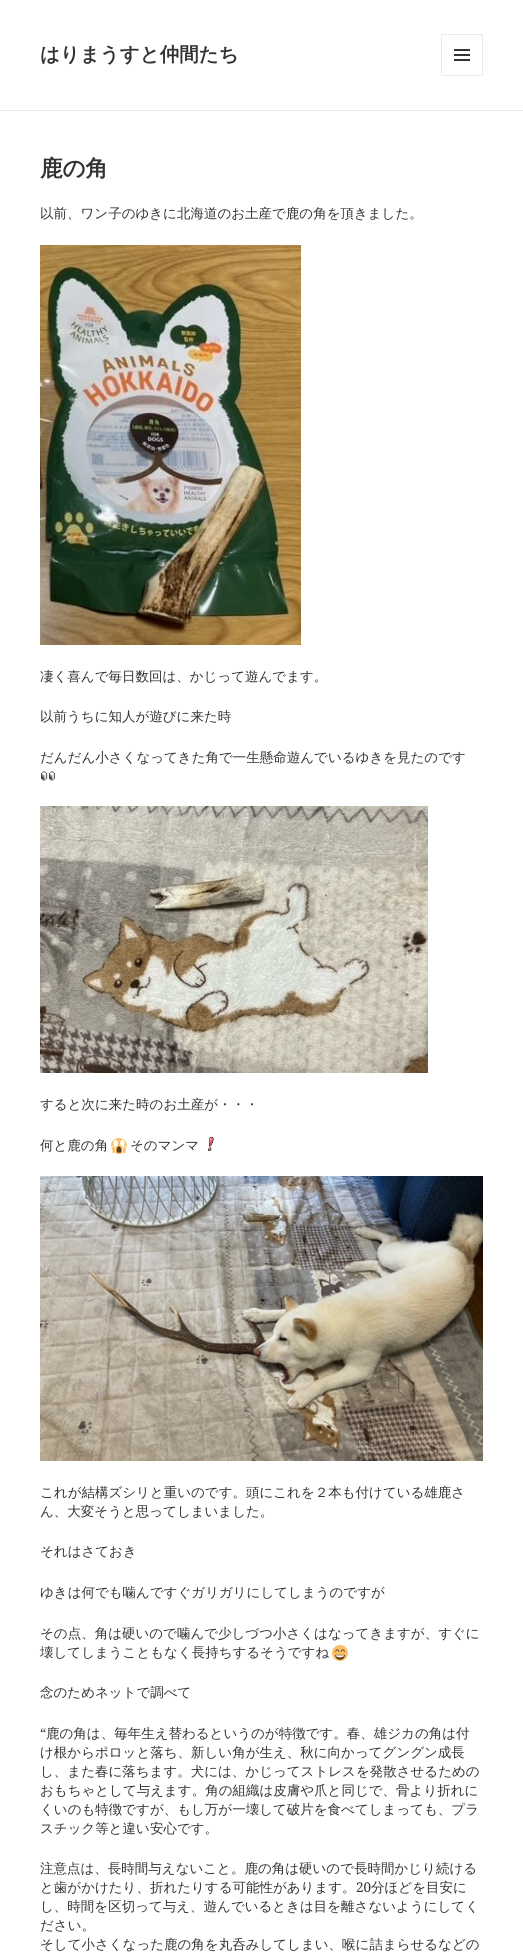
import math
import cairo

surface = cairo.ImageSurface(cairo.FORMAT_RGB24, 523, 1959)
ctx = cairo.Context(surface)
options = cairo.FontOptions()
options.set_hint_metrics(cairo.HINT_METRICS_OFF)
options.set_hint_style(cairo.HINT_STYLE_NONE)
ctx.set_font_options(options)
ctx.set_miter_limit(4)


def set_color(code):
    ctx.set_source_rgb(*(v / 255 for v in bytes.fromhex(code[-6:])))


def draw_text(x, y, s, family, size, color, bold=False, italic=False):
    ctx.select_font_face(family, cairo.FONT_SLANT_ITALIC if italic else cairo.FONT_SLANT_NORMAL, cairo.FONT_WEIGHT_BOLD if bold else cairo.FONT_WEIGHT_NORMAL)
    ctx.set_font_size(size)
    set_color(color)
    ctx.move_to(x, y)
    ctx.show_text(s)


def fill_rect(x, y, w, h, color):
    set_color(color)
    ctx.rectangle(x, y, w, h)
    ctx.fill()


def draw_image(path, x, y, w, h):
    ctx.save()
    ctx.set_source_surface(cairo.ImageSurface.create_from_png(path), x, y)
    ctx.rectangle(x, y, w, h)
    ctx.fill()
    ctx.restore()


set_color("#ffffff")
ctx.paint()
fill_rect(0, 110, 523, 1, "#ebebeb")
draw_text(40, 61, "はりまうすと仲間たち", "WenQuanYi Zen Hei", 19.5, "#333333", bold=True)
ctx.rectangle(441.5, 34.5, 41, 41)
set_color("#ebebeb")
ctx.set_line_width(1)
ctx.stroke()
draw_image("assets/img1.png", 454, 49, 16, 12)
draw_text(40, 176, "鹿の角", "WenQuanYi Zen Hei", 22.5, "#333333", bold=True)
draw_text(40, 218, "以前、ワン子のゆきに北海道のお土産で鹿の角を頂きました。", "WenQuanYi Zen Hei Medium", 13.5, "#333333")
draw_image("assets/img2.png", 40, 245, 261, 400)
draw_text(40, 681, "凄く喜んで毎日数回は、かじって遊んでます。", "WenQuanYi Zen Hei Medium", 13.5, "#333333")
draw_text(40, 721, "以前うちに知人が遊びに来た時", "WenQuanYi Zen Hei Medium", 13.5, "#333333")
draw_text(40, 762, "だんだん小さくなってきた角で一生懸命遊んでいるゆきを見たのです", "WenQuanYi Zen Hei Medium", 13.5, "#333333")
draw_image("assets/img3.png", 41, 771, 14, 10)
draw_image("assets/img4.png", 40, 806, 388, 267)
draw_text(40, 1109, "すると次に来た時のお土産が・・・", "WenQuanYi Zen Hei Medium", 13.5, "#333333")
draw_text(40, 1150, "何と鹿の角", "WenQuanYi Zen Hei Medium", 13.5, "#333333")
draw_image("assets/img5.png", 111, 1138, 16, 16)
draw_text(130, 1150, "そのマンマ", "WenQuanYi Zen Hei Medium", 13.5, "#333333")
draw_image("assets/img6.png", 208, 1137, 6, 14)
draw_image("assets/img7.png", 40, 1176, 443, 285)
draw_text(40, 1497, "これが結構ズシリと重いのです。頭にこれを２本も付けている雄鹿さ", "WenQuanYi Zen Hei Medium", 13.5, "#333333")
draw_text(40, 1516, "ん、大変そうと思ってしまいました。", "WenQuanYi Zen Hei Medium", 13.5, "#333333")
draw_text(40, 1556, "それはさておき", "WenQuanYi Zen Hei Medium", 13.5, "#333333")
draw_text(40, 1597, "ゆきは何でも噛んですぐガリガリにしてしまうのですが", "WenQuanYi Zen Hei Medium", 13.5, "#333333")
draw_text(40, 1638, "その点、角は硬いので噛んで少しづつ小さくはなってきますが、すぐに", "WenQuanYi Zen Hei Medium", 13.5, "#333333")
draw_text(40, 1657, "壊してしまうこともなく長持ちするそうですね", "WenQuanYi Zen Hei Medium", 13.5, "#333333")
draw_image("assets/img8.png", 332, 1645, 16, 16)
draw_text(40, 1697, "念のためネットで調べて", "WenQuanYi Zen Hei Medium", 13.5, "#333333")
draw_text(40, 1738, "“", "Noto Serif", 13.5, "#333333")
draw_text(46, 1738, "鹿の角は、毎年生え替わるというのが特徴です。春、雄ジカの角は付", "WenQuanYi Zen Hei Medium", 13.5, "#333333")
draw_text(40, 1757, "け根からポロッと落ち、新しい角が生え、秋に向かってグングン成長", "WenQuanYi Zen Hei Medium", 13.5, "#333333")
draw_text(40, 1776, "し、また春に落ちます。犬には、かじってストレスを発散させるための", "WenQuanYi Zen Hei Medium", 13.5, "#333333")
draw_text(40, 1795, "おもちゃとして与えます。角の組織は皮膚や爪と同じで、骨より折れに", "WenQuanYi Zen Hei Medium", 13.5, "#333333")
draw_text(40, 1814, "くいのも特徴ですが、もし万が一壊して破片を食べてしまっても、プラ", "WenQuanYi Zen Hei Medium", 13.5, "#333333")
draw_text(40, 1833, "スチック等と違い安心です。", "WenQuanYi Zen Hei Medium", 13.5, "#333333")
draw_text(40, 1873, "注意点は、長時間与えないこと。鹿の角は硬いので長時間かじり続ける", "WenQuanYi Zen Hei Medium", 13.5, "#333333")
draw_text(40, 1892, "と歯がかけたり、折れたりする可能性があります。", "WenQuanYi Zen Hei Medium", 13.5, "#333333")
draw_text(356, 1892, "20", "Noto Serif", 13.5, "#333333")
draw_text(371, 1892, "分ほどを目安に", "WenQuanYi Zen Hei Medium", 13.5, "#333333")
draw_text(40, 1911, "し、時間を区切って与え、遊んでいるときは目を離さないようにしてく", "WenQuanYi Zen Hei Medium", 13.5, "#333333")
draw_text(40, 1930, "ださい。", "WenQuanYi Zen Hei Medium", 13.5, "#333333")
draw_text(40, 1949, "そして小さくなった鹿の角を丸呑みしてしまい、喉に詰まらせるなどの", "WenQuanYi Zen Hei Medium", 13.5, "#333333")
surface.write_to_png("output.png")
